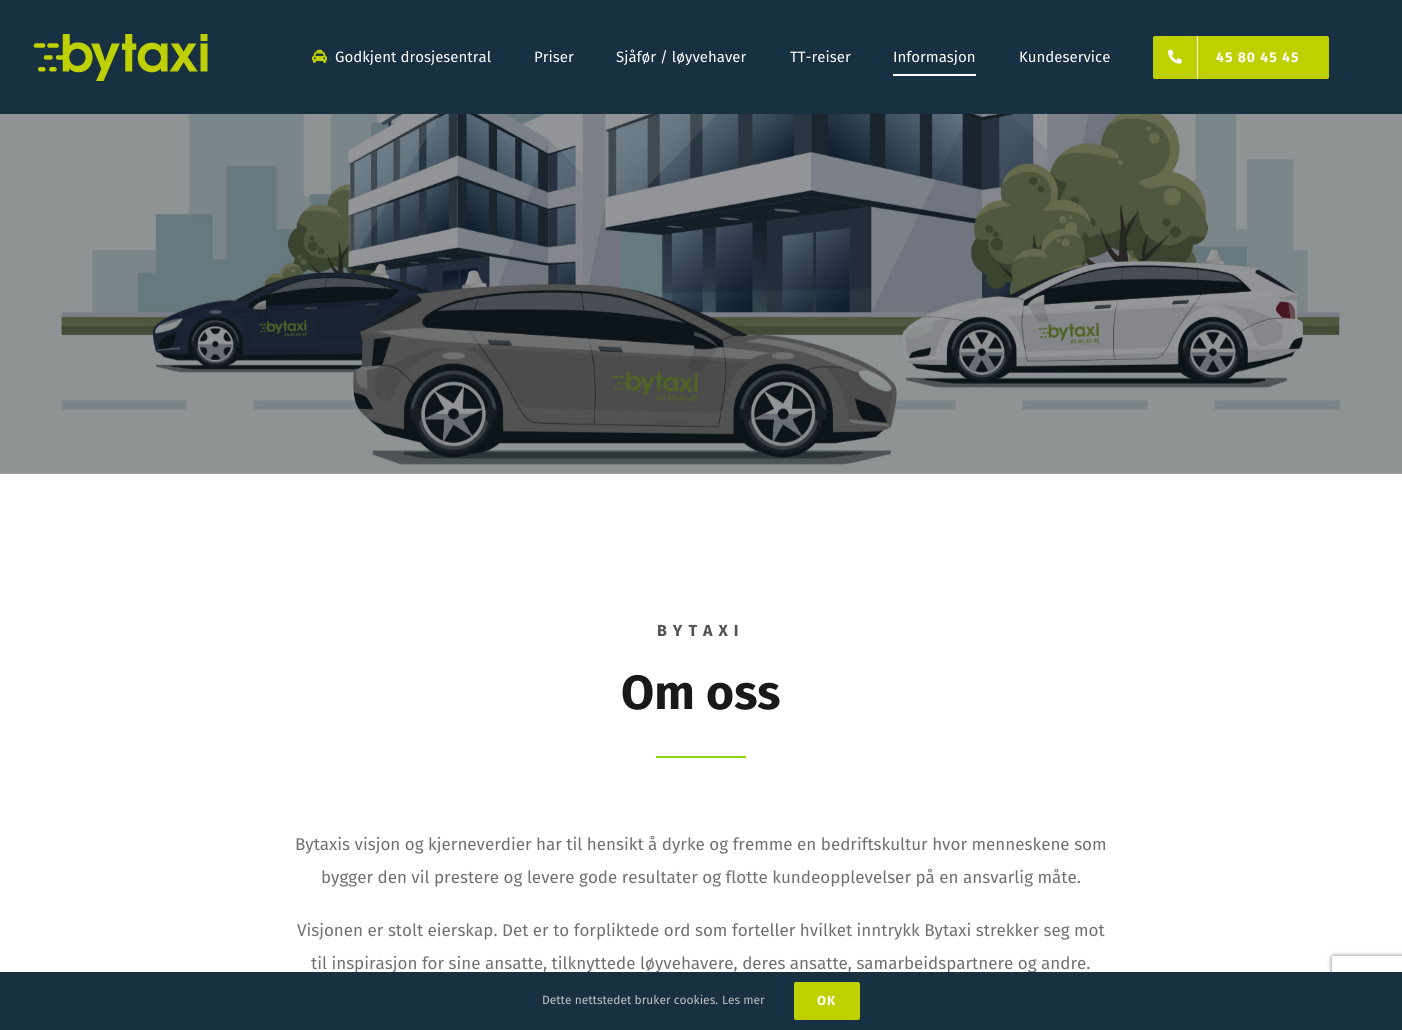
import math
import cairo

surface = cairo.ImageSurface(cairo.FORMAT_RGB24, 1402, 1030)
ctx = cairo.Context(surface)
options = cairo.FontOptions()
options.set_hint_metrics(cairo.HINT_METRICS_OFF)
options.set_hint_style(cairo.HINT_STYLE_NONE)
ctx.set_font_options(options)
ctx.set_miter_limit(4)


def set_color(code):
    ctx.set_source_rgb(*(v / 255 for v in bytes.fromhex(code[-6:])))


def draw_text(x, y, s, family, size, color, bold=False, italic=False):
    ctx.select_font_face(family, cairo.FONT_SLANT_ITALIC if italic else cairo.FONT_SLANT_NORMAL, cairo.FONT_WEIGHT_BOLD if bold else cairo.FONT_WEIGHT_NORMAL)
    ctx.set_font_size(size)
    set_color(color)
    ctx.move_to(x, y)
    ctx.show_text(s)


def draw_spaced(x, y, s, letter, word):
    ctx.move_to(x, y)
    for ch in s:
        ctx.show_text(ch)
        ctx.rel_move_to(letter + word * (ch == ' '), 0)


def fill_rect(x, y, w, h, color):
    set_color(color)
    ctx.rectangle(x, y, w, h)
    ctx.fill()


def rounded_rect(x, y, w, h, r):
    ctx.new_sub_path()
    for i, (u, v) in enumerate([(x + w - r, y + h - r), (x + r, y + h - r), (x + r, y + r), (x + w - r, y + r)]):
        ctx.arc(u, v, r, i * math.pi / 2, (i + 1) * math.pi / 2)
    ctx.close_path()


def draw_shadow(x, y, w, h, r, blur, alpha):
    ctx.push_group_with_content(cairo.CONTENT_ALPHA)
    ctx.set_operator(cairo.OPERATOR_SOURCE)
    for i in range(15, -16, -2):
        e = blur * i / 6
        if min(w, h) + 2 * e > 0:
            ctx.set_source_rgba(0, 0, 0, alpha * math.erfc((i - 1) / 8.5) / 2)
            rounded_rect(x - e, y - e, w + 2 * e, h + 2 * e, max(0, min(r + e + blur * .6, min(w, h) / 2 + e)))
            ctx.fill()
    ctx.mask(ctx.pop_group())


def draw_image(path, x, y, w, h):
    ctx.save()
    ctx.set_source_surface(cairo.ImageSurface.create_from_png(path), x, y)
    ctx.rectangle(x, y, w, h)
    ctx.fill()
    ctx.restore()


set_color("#ffffff")
ctx.paint()
fill_rect(0, 0, 1402, 114, "#173042")
draw_image("assets/img1.png", 33, 34, 175, 47)
draw_image("assets/img2.png", 312, 49, 15, 14)
draw_text(335, 62, "Godkjent drosjesentral", "Fira Sans", 15, "#ffffff")
draw_text(534, 62, "Priser", "Fira Sans", 15, "#ffffff")
draw_text(616, 62, "Sjåfør / løyvehaver", "Fira Sans", 15, "#ffffff")
draw_text(790, 62, "TT-reiser", "Fira Sans", 15, "#ffffff")
draw_text(893, 62, "Informasjon", "Fira Sans", 15, "#ffffff")
fill_rect(893, 74, 83, 2, "#ffffff")
draw_text(1019, 62, "Kundeservice", "Fira Sans", 15, "#ffffff")
set_color("#bed000")
rounded_rect(1153, 36, 176, 43, 2)
ctx.fill()
fill_rect(1197, 36, 1, 43, "#ffffff")
draw_image("assets/img3.png", 1168, 49, 14, 15)
ctx.select_font_face("Fira Sans", cairo.FONT_SLANT_NORMAL, cairo.FONT_WEIGHT_BOLD)
ctx.set_font_size(14)
draw_spaced(1216, 62, "45 80 45 45", 1, 0)
draw_image("assets/img4.png", 0, 114, 1402, 360)
ctx.set_font_size(16)
set_color("#525252")
draw_spaced(657, 636, "BYTAXI", 6, 0)
draw_text(621, 709, "Om oss", "Fira Sans", 48, "#191919", bold=True)
fill_rect(656, 756, 90, 2, "#93d500")
draw_text(295, 850, "Bytaxis visjon og kjerneverdier har til hensikt å dyrke og fremme en bedriftskultur hvor menneskene som", "Fira Sans", 17, "#707070")
draw_text(321, 883, "bygger den vil prestere og levere gode resultater og flotte kundeopplevelser på en ansvarlig måte.", "Fira Sans", 17, "#707070")
draw_text(297, 936, "Visjonen er stolt eierskap. Det er to forpliktede ord som forteller hvilket inntrykk Bytaxi strekker seg mot", "Fira Sans", 17, "#707070")
draw_text(311, 969, "til inspirasjon for sine ansatte, tilknyttede løyvehavere, deres ansatte, samarbeidspartnere og andre.", "Fira Sans", 17, "#707070")
ctx.save()
ctx.set_fill_rule(cairo.FILL_RULE_EVEN_ODD)
ctx.new_path()
ctx.move_to(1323, 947)
ctx.line_to(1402, 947)
ctx.line_to(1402, 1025)
ctx.line_to(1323, 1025)
ctx.close_path()
ctx.move_to(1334, 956)
ctx.line_to(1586, 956)
ctx.curve_to(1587, 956, 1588, 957, 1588, 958)
ctx.line_to(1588, 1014)
ctx.curve_to(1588, 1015, 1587, 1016, 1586, 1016)
ctx.line_to(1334, 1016)
ctx.curve_to(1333, 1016, 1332, 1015, 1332, 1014)
ctx.line_to(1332, 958)
ctx.curve_to(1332, 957, 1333, 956, 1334, 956)
ctx.close_path()
ctx.clip()
set_color("#808080")
draw_shadow(1332, 956, 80, 60, 2, 2.5, 1)
ctx.restore()
fill_rect(0, 972, 1402, 58, "#173042")
draw_text(542, 1004, "Dette nettstedet bruker cookies.", "Fira Sans", 12, "#c6c2c2")
draw_text(722, 1004, "Les mer", "Fira Sans", 12, "#bfbfbf")
set_color("#bed000")
rounded_rect(794, 982, 66, 38, 2)
ctx.fill()
ctx.select_font_face("Fira Sans", cairo.FONT_SLANT_NORMAL, cairo.FONT_WEIGHT_BOLD)
ctx.set_font_size(13)
set_color("#ffffff")
draw_spaced(817, 1005, "OK", 1, 0)
surface.write_to_png("output.png")
